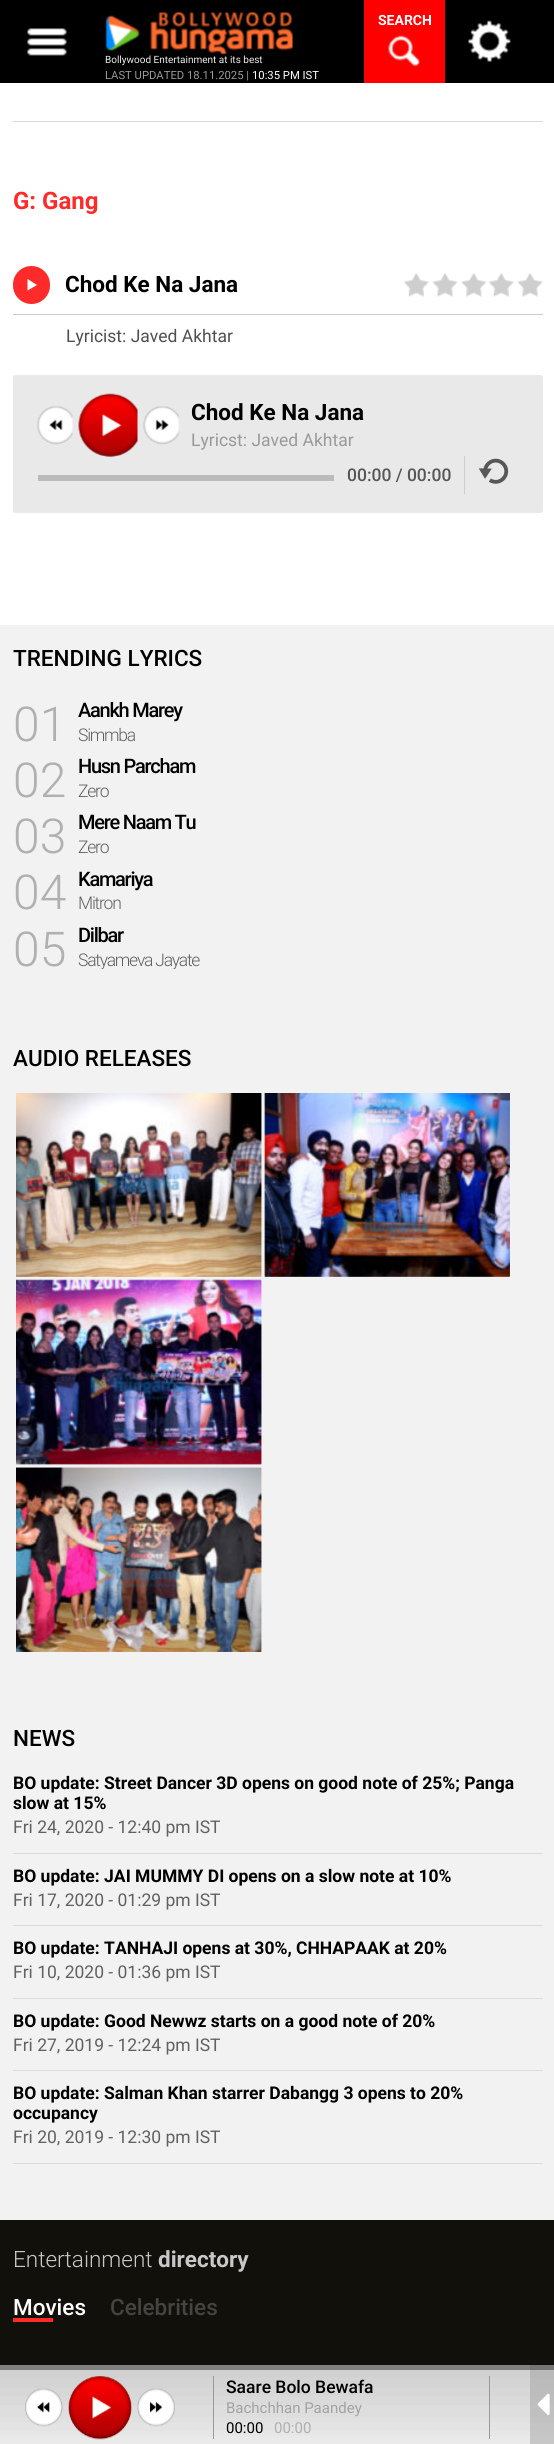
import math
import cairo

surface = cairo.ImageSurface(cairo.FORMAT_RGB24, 554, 2444)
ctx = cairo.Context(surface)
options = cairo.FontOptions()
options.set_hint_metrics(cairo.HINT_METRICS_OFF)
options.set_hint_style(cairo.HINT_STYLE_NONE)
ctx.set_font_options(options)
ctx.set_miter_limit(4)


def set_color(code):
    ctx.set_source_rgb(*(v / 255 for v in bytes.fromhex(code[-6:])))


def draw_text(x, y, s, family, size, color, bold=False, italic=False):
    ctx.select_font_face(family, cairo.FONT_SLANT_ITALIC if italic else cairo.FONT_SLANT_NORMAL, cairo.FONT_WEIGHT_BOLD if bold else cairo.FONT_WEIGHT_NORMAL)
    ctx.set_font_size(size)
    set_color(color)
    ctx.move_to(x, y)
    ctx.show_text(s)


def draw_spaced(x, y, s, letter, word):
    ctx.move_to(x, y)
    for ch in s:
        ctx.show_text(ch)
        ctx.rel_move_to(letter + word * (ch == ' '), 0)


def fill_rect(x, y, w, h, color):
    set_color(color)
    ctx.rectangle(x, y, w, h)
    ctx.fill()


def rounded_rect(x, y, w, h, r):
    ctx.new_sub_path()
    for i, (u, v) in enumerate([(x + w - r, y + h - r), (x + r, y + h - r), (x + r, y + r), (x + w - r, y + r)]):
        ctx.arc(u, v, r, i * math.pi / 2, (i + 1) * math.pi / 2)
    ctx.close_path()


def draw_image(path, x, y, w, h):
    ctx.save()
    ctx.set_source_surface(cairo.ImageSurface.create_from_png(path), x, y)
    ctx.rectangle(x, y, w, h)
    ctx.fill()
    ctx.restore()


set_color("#12100b")
ctx.paint()
fill_rect(0, 0, 554, 83, "#000000")
draw_image("assets/img1.png", 27, 28, 40, 28)
fill_rect(364, 0, 81, 83, "#ff0000")
draw_text(378, 25, "SEARCH", "Roboto", 14, "#ffffff", bold=True)
draw_image("assets/img2.png", 388, 35, 32, 32)
draw_image("assets/img3.png", 468, 20, 43, 42)
draw_image("assets/img4.png", 105, 12, 188, 43)
draw_text(105, 63, "Bollywood Entertainment at its best", "Roboto", 10, "#eeeeee")
draw_text(105, 79, "LAST UPDATED 18.11.2025 |", "Roboto", 11.25, "#999999")
draw_text(252, 79, "10:35 PM IST", "Roboto", 11.25, "#ffffff")
fill_rect(0, 83, 554, 542, "#ffffff")
fill_rect(13, 121, 530, 1, "#d9d9d9")
draw_text(13, 209, "G: Gang", "Roboto", 24, "#ff2b2b", bold=True)
rounded_rect(13, 266, 37, 38, 18.5)
ctx.fill()
set_color("#ffffff")
ctx.new_path()
ctx.move_to(27.5, 290.5)
ctx.line_to(27.5, 279)
ctx.line_to(37, 285)
ctx.close_path()
ctx.fill()
draw_text(65, 292, "Chod Ke Na Jana", "Roboto", 22.5, "#000000", bold=True)
draw_image("assets/img5.png", 403, 273, 140, 24)
fill_rect(13, 314, 530, 1, "#cbcbcb")
draw_text(66, 342, "Lyricist: Javed Akhtar", "Roboto", 17.5, "#4f4f4f")
set_color("#e9e9e9")
rounded_rect(13, 375, 530, 138, 2.5)
ctx.fill()
draw_image("assets/img6.png", 37, 406, 36, 39)
draw_image("assets/img7.png", 78, 393, 60, 64)
draw_image("assets/img8.png", 143, 406, 37, 39)
draw_text(191, 420, "Chod Ke Na Jana", "Roboto", 22.5, "#000000", bold=True)
draw_text(191, 446, "Lyricst: Javed Akhtar", "Roboto", 17.5, "#999999")
fill_rect(38, 475, 296, 6, "#bbbbbb")
draw_text(347, 481, "00:00 / 00:00", "Roboto Medium", 17.5, "#575757")
fill_rect(464, 456, 1, 38, "#cccccc")
draw_image("assets/img9.png", 478, 458, 31, 26)
fill_rect(0, 625, 554, 1595, "#f2f2f2")
draw_text(13, 666, "TRENDING LYRICS", "Roboto Medium", 22.5, "#000000")
draw_text(13, 741, "01", "Roboto Light", 48, "#b0b0b0")
ctx.select_font_face("Roboto Medium")
ctx.set_font_size(20)
set_color("#000000")
draw_spaced(78, 717, "Aankh Marey", -1.25, 0)
ctx.select_font_face("Roboto Light")
ctx.set_font_size(17.5)
set_color("#616161")
draw_spaced(78, 741, "Simmba", -1.25, 0)
draw_text(13, 797, "02", "Roboto Light", 48, "#b0b0b0")
ctx.select_font_face("Roboto Medium")
ctx.set_font_size(20)
set_color("#000000")
draw_spaced(78, 773, "Husn Parcham", -1.25, 0)
ctx.select_font_face("Roboto Light")
ctx.set_font_size(17.5)
set_color("#616161")
draw_spaced(78, 797, "Zero", -1.25, 0)
draw_text(13, 853, "03", "Roboto Light", 48, "#b0b0b0")
ctx.select_font_face("Roboto Medium")
ctx.set_font_size(20)
set_color("#000000")
draw_spaced(78, 829, "Mere Naam Tu", -1.25, 0)
ctx.select_font_face("Roboto Light")
ctx.set_font_size(17.5)
set_color("#616161")
draw_spaced(78, 853, "Zero", -1.25, 0)
draw_text(13, 909, "04", "Roboto Light", 48, "#b0b0b0")
ctx.select_font_face("Roboto Medium")
ctx.set_font_size(20)
set_color("#000000")
draw_spaced(78, 886, "Kamariya", -1.25, 0)
ctx.select_font_face("Roboto Light")
ctx.set_font_size(17.5)
set_color("#616161")
draw_spaced(78, 909, "Mitron", -1.25, 0)
draw_text(13, 966, "05", "Roboto Light", 48, "#b0b0b0")
ctx.select_font_face("Roboto Medium")
ctx.set_font_size(20)
set_color("#000000")
draw_spaced(78, 942, "Dilbar", -1.25, 0)
ctx.save()
ctx.rectangle(78, 924, 465, 45)
ctx.clip()
ctx.select_font_face("Roboto Light")
ctx.set_font_size(17.5)
set_color("#616161")
draw_spaced(78, 966, "Satyameva Jayate", -1.25, 0)
ctx.restore()
draw_text(13, 1066, "AUDIO RELEASES", "Roboto Medium", 22.5, "#000000")
draw_image("assets/img10.png", 16, 1093, 246, 184)
draw_image("assets/img11.png", 16, 1093, 246, 184)
draw_image("assets/img12.png", 264, 1093, 246, 184)
draw_image("assets/img13.png", 264, 1093, 246, 184)
draw_image("assets/img14.png", 16, 1279, 246, 186)
draw_image("assets/img15.png", 16, 1279, 246, 186)
draw_image("assets/img16.png", 16, 1467, 246, 185)
draw_image("assets/img17.png", 16, 1467, 246, 185)
draw_text(13, 1746, "NEWS", "Roboto Medium", 22.5, "#000000")
fill_rect(13, 1853, 530, 1, "#dcdcdc")
draw_text(13, 1789, "BO update: Street Dancer 3D opens on good note of 25%; Panga", "Roboto", 17.5, "#000000", bold=True)
draw_text(13, 1809, "slow at 15%", "Roboto", 17.5, "#000000", bold=True)
draw_text(13, 1833, "Fri 24, 2020 - 12:40 pm IST", "Roboto", 17.5, "#616161")
fill_rect(13, 1925, 530, 1, "#dcdcdc")
draw_text(13, 1882, "BO update: JAI MUMMY DI opens on a slow note at 10%", "Roboto", 17.5, "#000000", bold=True)
draw_text(13, 1906, "Fri 17, 2020 - 01:29 pm IST", "Roboto", 17.5, "#616161")
fill_rect(13, 1998, 530, 1, "#dcdcdc")
draw_text(13, 1954, "BO update: TANHAJI opens at 30%, CHHAPAAK at 20%", "Roboto", 17.5, "#000000", bold=True)
draw_text(13, 1978, "Fri 10, 2020 - 01:36 pm IST", "Roboto", 17.5, "#616161")
fill_rect(13, 2070, 530, 1, "#dcdcdc")
draw_text(13, 2027, "BO update: Good Newwz starts on a good note of 20%", "Roboto", 17.5, "#000000", bold=True)
draw_text(13, 2051, "Fri 27, 2019 - 12:24 pm IST", "Roboto", 17.5, "#616161")
fill_rect(13, 2163, 530, 1, "#dcdcdc")
draw_text(13, 2099, "BO update: Salman Khan starrer Dabangg 3 opens to 20%", "Roboto", 17.5, "#000000", bold=True)
draw_text(13, 2119, "occupancy", "Roboto", 17.5, "#000000", bold=True)
draw_text(13, 2143, "Fri 20, 2019 - 12:30 pm IST", "Roboto", 17.5, "#616161")
draw_text(13, 2267, "Entertainment", "Roboto Light", 22.5, "#c8c8c8")
draw_text(158, 2267, "directory", "Roboto", 22.5, "#c8c8c8", bold=True)
draw_text(13, 2315, "Movies", "Roboto Medium", 22.5, "#ffffff")
fill_rect(13, 2318, 40, 4, "#ff2b2b")
draw_text(110, 2315, "Celebrities", "Roboto Medium", 22.5, "#464440")
draw_image("assets/img18.png", 0, 2365, 554, 79)
ctx.set_source_rgba(0.6, 0.6, 0.6, 0.43)
ctx.rectangle(530, 2365, 24, 79)
ctx.fill()
ctx.set_source_rgba(0.188, 0.188, 0.188, 0.5)
ctx.rectangle(0, 2365, 554, 5)
ctx.fill()
draw_image("assets/img19.png", 25, 2388, 38, 39)
draw_image("assets/img20.png", 68, 2376, 64, 64)
draw_image("assets/img21.png", 137, 2388, 38, 39)
fill_rect(213, 2376, 1, 63, "#999999")
draw_text(226, 2393, "Saare Bolo Bewafa", "Roboto Medium", 17.5, "#000000")
draw_text(226, 2413, "Bachchhan Paandey", "Roboto", 15, "#a2a2a2")
draw_text(226, 2433, "00:00", "Roboto", 15, "#000000")
draw_text(274, 2433, "00:00", "Roboto", 15, "#b0b0b0")
fill_rect(489, 2376, 1, 63, "#999999")
draw_image("assets/img22.png", 537, 2393, 13, 22)
surface.write_to_png("output.png")
